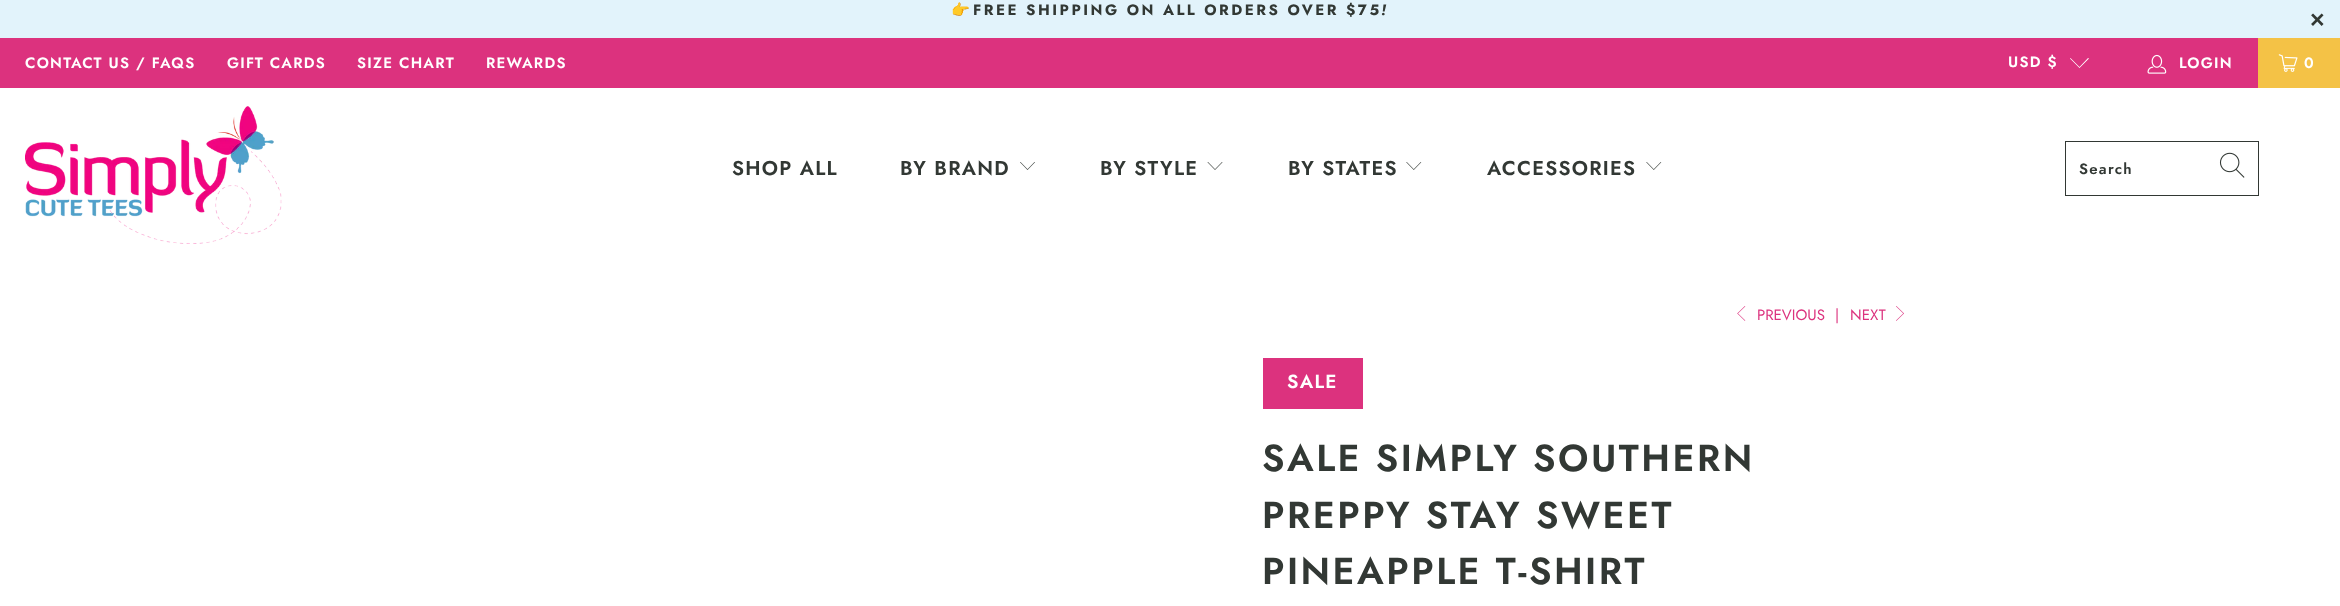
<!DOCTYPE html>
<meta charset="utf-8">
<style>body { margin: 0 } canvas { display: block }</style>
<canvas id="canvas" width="2340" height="606"></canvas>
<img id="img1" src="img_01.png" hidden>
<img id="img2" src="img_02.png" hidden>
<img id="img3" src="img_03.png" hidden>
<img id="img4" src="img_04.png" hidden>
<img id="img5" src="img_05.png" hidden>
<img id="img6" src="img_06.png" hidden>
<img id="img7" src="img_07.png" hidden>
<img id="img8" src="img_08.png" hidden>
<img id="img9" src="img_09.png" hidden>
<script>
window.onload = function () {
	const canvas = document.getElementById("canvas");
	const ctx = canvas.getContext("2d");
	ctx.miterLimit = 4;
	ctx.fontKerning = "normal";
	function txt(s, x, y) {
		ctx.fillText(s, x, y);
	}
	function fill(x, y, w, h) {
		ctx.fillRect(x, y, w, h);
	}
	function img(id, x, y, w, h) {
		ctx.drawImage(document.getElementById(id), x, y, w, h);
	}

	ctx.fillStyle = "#FFFFFF";
	fill(0, 0, 2340, 606);
	ctx.fillStyle = "#E2F3FB";
	fill(0, 0, 2340, 38);
	ctx.fillStyle = "#DC327E";
	fill(0, 38, 2258, 50);
	ctx.fillStyle = "#FFFFFF";
	ctx.beginPath();
	ctx.moveTo(2079.5, 68);
	ctx.lineTo(2070, 58.5);
	ctx.lineTo(2070.5, 58);
	ctx.lineTo(2079.5, 67);
	ctx.lineTo(2088, 58);
	ctx.lineTo(2089, 58.5);
	ctx.closePath();
	ctx.fill();
	img("img1", 2147, 54, 20, 20);
	ctx.fillStyle = "#F4C246";
	fill(2258, 38, 82, 50);
	img("img2", 2278, 54, 20, 18);
	img("img3", 25, 106, 257, 138);
	img("img4", 1020, 162, 15, 8);
	img("img5", 1207, 162, 16, 8);
	img("img6", 1406, 162, 16, 8);
	img("img6", 1646, 162, 16, 8);
	ctx.strokeStyle = "#323834";
	ctx.strokeRect(2065.5, 141.5, 193, 54);
	img("img7", 2219, 152, 26, 26);
	img("img8", 1737, 306, 9, 15);
	img("img9", 1896, 306, 8, 15);
	ctx.fillStyle = "#DC327E";
	fill(1263, 358, 100, 51);
	ctx.letterSpacing = "2.5px";
	ctx.font = "bold 15px Noto Color Emoji";
	ctx.fillStyle = "#323834";
	txt("👉", 951, 15);
	ctx.font = "bold 15px Jost";
	txt("FREE SHIPPING ON ALL ORDERS OVER $75", 973, 15);
	ctx.font = "italic bold 15px Jost";
	txt("!", 1381, 15);
	ctx.font = "bold 25px Liberation Sans";
	txt("×", 2310, 28);
	ctx.letterSpacing = "1.25px";
	ctx.font = "600 15px Jost";
	ctx.fillStyle = "#FFFFFF";
	txt("CONTACT US / FAQS", 25, 68);
	txt("GIFT CARDS", 227, 68);
	txt("SIZE CHART", 357, 68);
	txt("REWARDS", 486, 68);
	txt("USD $", 2008, 67);
	txt("LOGIN", 2179, 68);
	txt("0", 2304, 68);
	ctx.font = "600 20px Jost";
	ctx.fillStyle = "#323834";
	txt("SHOP ALL", 732, 175);
	txt("BY BRAND", 900, 175);
	txt("BY STYLE", 1100, 175);
	txt("BY STATES", 1288, 175);
	txt("ACCESSORIES", 1487, 175);
	ctx.font = "600 15px Jost";
	txt("Search", 2079, 174);
	ctx.letterSpacing = "0px";
	ctx.font = "15px Jost";
	ctx.fillStyle = "#DC327E";
	txt("PREVIOUS", 1757, 320);
	txt("|", 1835, 320);
	txt("NEXT", 1850, 320);
	ctx.letterSpacing = "1.25px";
	ctx.font = "600 19px Jost";
	ctx.fillStyle = "#FFFFFF";
	txt("SALE", 1287, 388);
	ctx.letterSpacing = "2.5px";
	ctx.font = "600 37.5px Jost";
	ctx.fillStyle = "#323834";
	txt("SALE SIMPLY SOUTHERN", 1262, 471);
	txt("PREPPY STAY SWEET", 1262, 528);
	txt("PINEAPPLE T-SHIRT", 1262, 584);
};
</script>
